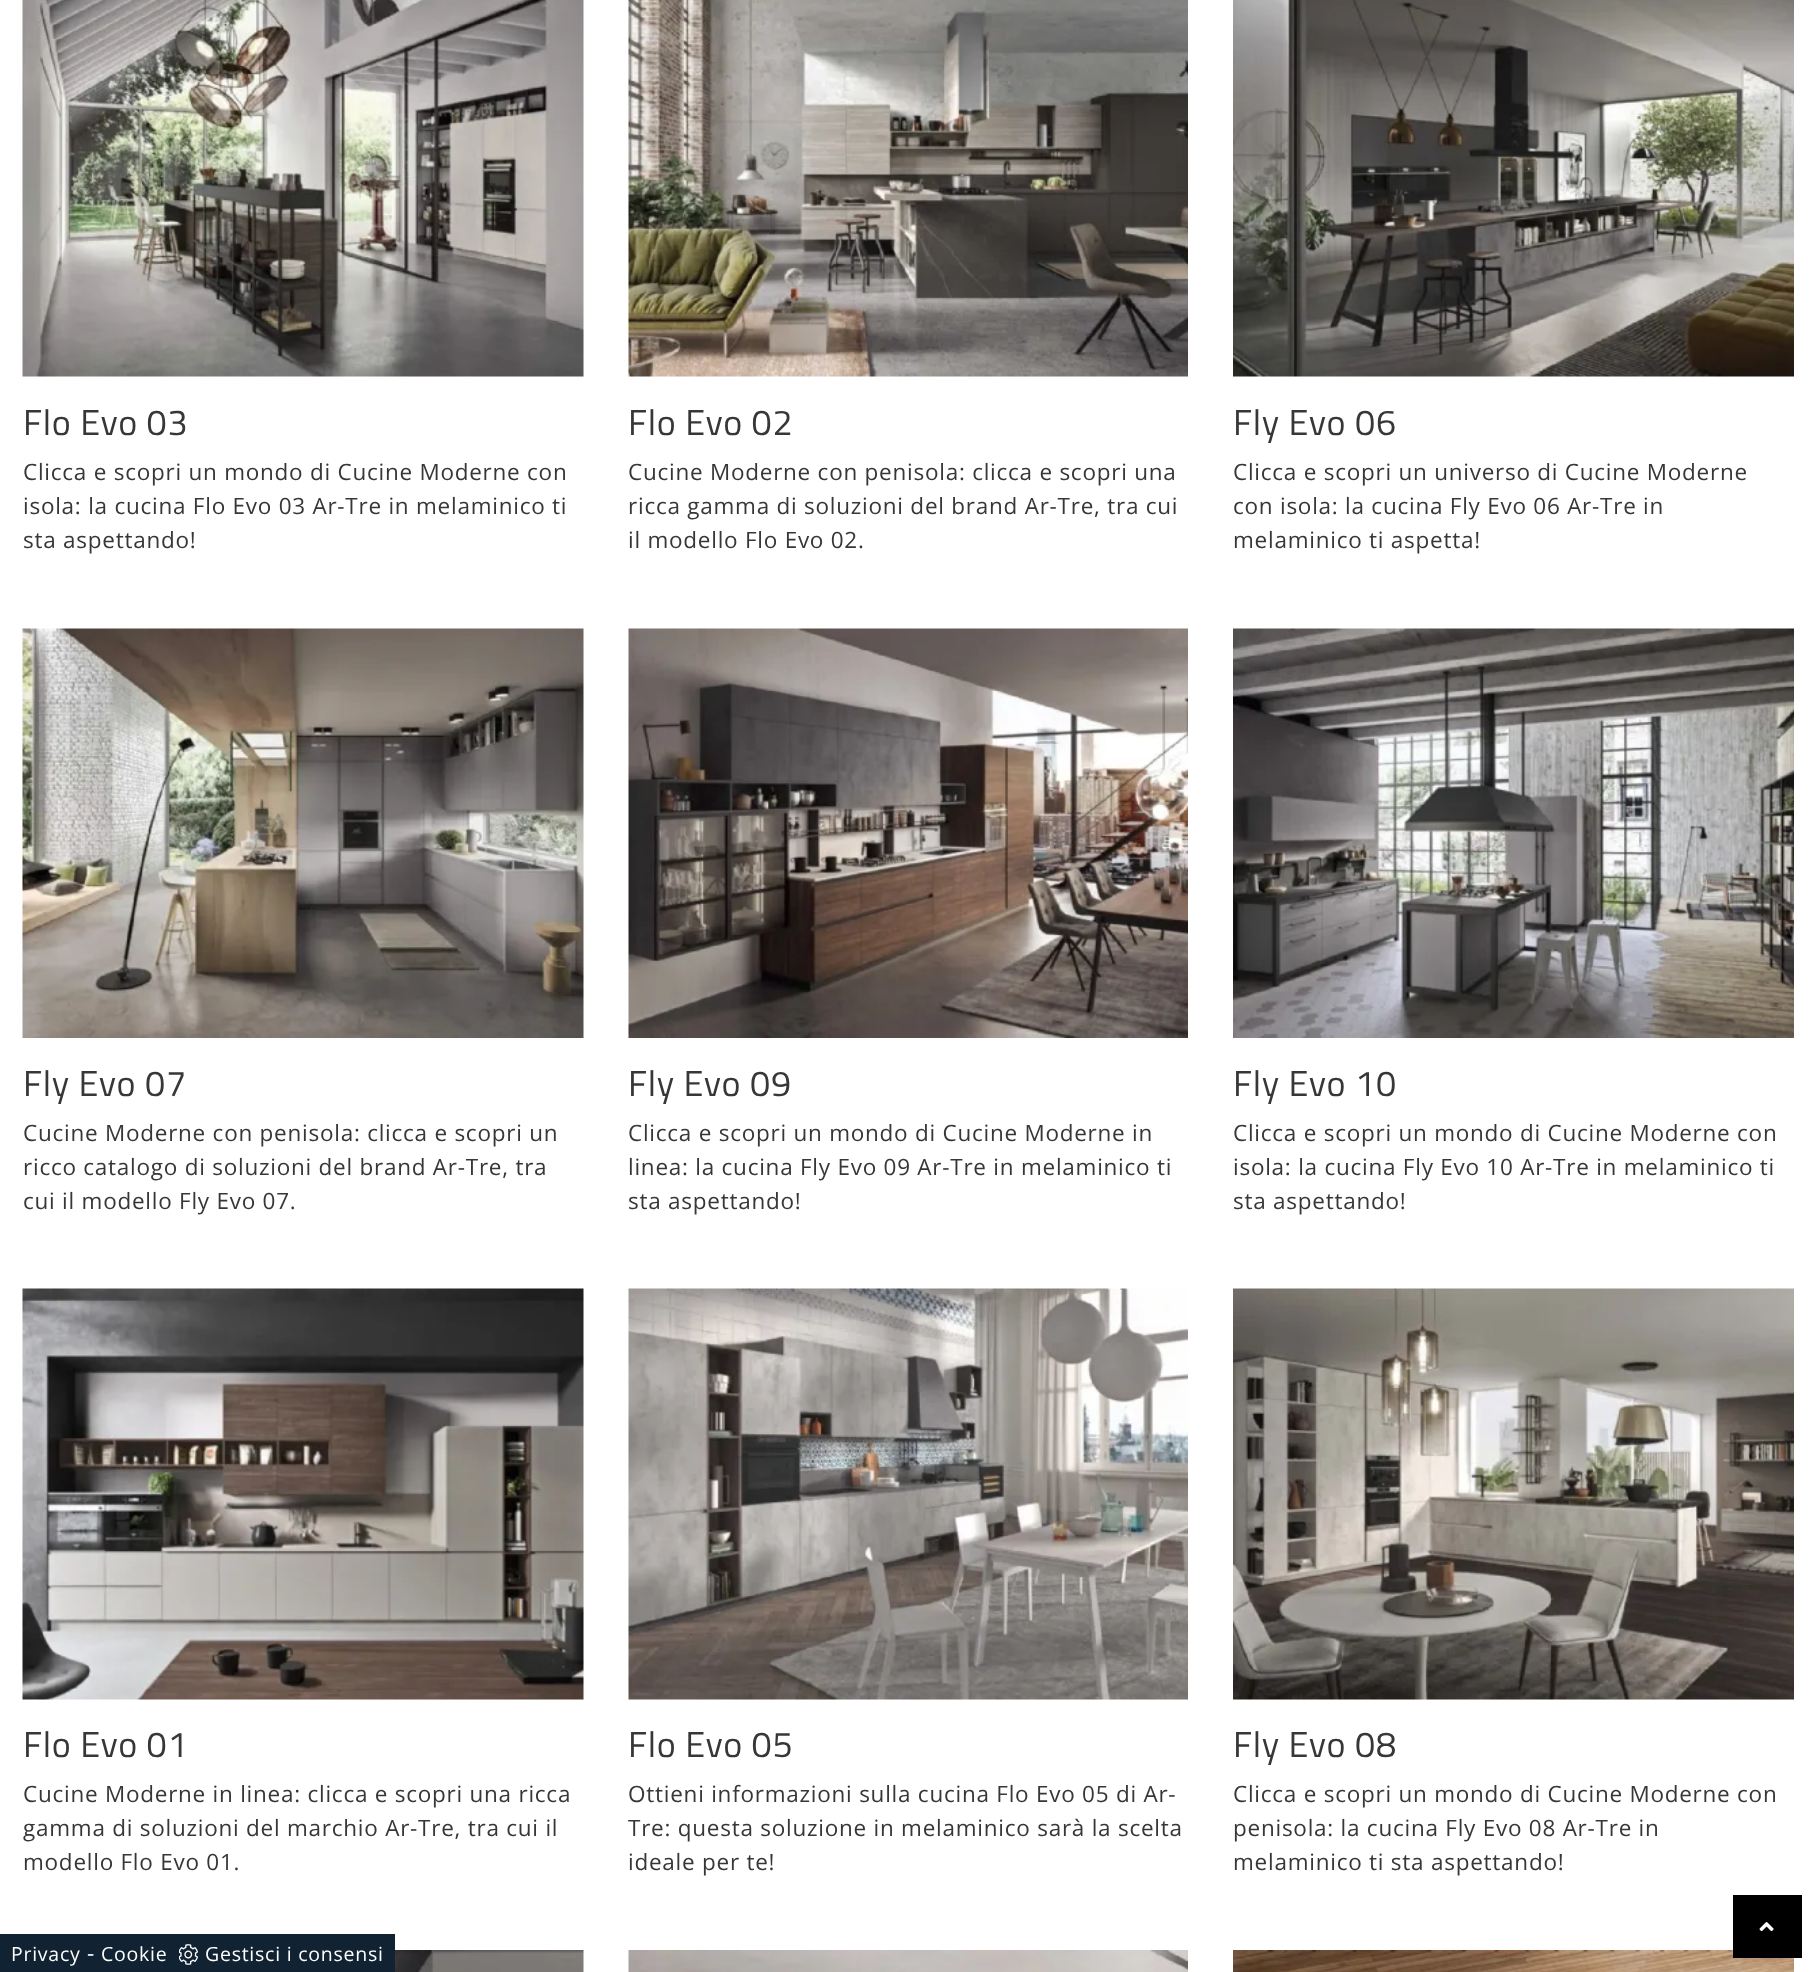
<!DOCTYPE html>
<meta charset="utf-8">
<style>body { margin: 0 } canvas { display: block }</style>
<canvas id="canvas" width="1816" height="1972"></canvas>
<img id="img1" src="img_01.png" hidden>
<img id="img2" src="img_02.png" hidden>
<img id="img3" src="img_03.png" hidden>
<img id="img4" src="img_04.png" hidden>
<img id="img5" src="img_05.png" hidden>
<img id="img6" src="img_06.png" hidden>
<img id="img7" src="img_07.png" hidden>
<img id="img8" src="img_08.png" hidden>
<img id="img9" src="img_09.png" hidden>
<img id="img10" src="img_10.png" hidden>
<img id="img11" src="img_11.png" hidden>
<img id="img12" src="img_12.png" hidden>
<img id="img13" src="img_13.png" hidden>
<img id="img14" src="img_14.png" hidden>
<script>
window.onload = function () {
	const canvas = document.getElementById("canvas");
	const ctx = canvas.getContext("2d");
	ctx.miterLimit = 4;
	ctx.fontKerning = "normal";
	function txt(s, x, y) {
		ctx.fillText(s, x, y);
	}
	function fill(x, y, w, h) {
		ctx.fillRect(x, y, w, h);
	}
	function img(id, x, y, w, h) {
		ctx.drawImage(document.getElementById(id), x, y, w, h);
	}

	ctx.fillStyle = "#FFFFFF";
	fill(0, 0, 1816, 1972);
	img("img1", 22, 0, 562, 377);
	img("img2", 628, 0, 560, 377);
	img("img3", 1233, 0, 561, 377);
	img("img4", 22, 628, 562, 410);
	img("img5", 628, 628, 560, 410);
	img("img6", 1233, 628, 561, 410);
	img("img7", 22, 1288, 562, 412);
	img("img8", 628, 1288, 560, 412);
	img("img9", 1233, 1288, 561, 412);
	img("img10", 395, 1950, 189, 22);
	img("img11", 628, 1950, 560, 22);
	img("img12", 1233, 1950, 561, 22);
	ctx.fillStyle = "#112233";
	fill(0, 1934, 395, 38);
	img("img13", 179, 1944, 19, 21);
	ctx.fillStyle = "#000000";
	fill(1733, 1895, 69, 63);
	img("img14", 1759, 1922, 15, 10);
	ctx.letterSpacing = "0.75px";
	ctx.font = "36px Titillium Web";
	ctx.fillStyle = "#373737";
	txt("Flo Evo 03", 23, 435);
	ctx.font = "22.5px Open Sans";
	txt("Clicca e scopri un mondo di Cucine Moderne con", 23, 480);
	txt("isola: la cucina Flo Evo 03 Ar-Tre in melaminico ti", 23, 514);
	txt("sta aspettando!", 23, 548);
	ctx.font = "36px Titillium Web";
	txt("Flo Evo 02", 628, 435);
	ctx.font = "22.5px Open Sans";
	txt("Cucine Moderne con penisola: clicca e scopri una", 628, 480);
	txt("ricca gamma di soluzioni del brand Ar-Tre, tra cui", 628, 514);
	txt("il modello Flo Evo 02.", 628, 548);
	ctx.font = "36px Titillium Web";
	txt("Fly Evo 06", 1233, 435);
	ctx.font = "22.5px Open Sans";
	txt("Clicca e scopri un universo di Cucine Moderne", 1233, 480);
	txt("con isola: la cucina Fly Evo 06 Ar-Tre in", 1233, 514);
	txt("melaminico ti aspetta!", 1233, 548);
	ctx.font = "36px Titillium Web";
	txt("Fly Evo 07", 23, 1096);
	ctx.font = "22.5px Open Sans";
	txt("Cucine Moderne con penisola: clicca e scopri un", 23, 1141);
	txt("ricco catalogo di soluzioni del brand Ar-Tre, tra", 23, 1175);
	txt("cui il modello Fly Evo 07.", 23, 1209);
	ctx.font = "36px Titillium Web";
	txt("Fly Evo 09", 628, 1096);
	ctx.font = "22.5px Open Sans";
	txt("Clicca e scopri un mondo di Cucine Moderne in", 628, 1141);
	txt("linea: la cucina Fly Evo 09 Ar-Tre in melaminico ti", 628, 1175);
	txt("sta aspettando!", 628, 1209);
	ctx.font = "36px Titillium Web";
	txt("Fly Evo 10", 1233, 1096);
	ctx.font = "22.5px Open Sans";
	txt("Clicca e scopri un mondo di Cucine Moderne con", 1233, 1141);
	txt("isola: la cucina Fly Evo 10 Ar-Tre in melaminico ti", 1233, 1175);
	txt("sta aspettando!", 1233, 1209);
	ctx.font = "36px Titillium Web";
	txt("Flo Evo 01", 23, 1757);
	ctx.font = "22.5px Open Sans";
	txt("Cucine Moderne in linea: clicca e scopri una ricca", 23, 1802);
	txt("gamma di soluzioni del marchio Ar-Tre, tra cui il", 23, 1836);
	txt("modello Flo Evo 01.", 23, 1870);
	ctx.font = "36px Titillium Web";
	txt("Flo Evo 05", 628, 1757);
	ctx.font = "22.5px Open Sans";
	txt("Ottieni informazioni sulla cucina Flo Evo 05 di Ar-", 628, 1802);
	txt("Tre: questa soluzione in melaminico sarà la scelta", 628, 1836);
	txt("ideale per te!", 628, 1870);
	ctx.font = "36px Titillium Web";
	txt("Fly Evo 08", 1233, 1757);
	ctx.font = "22.5px Open Sans";
	txt("Clicca e scopri un mondo di Cucine Moderne con", 1233, 1802);
	txt("penisola: la cucina Fly Evo 08 Ar-Tre in", 1233, 1836);
	txt("melaminico ti sta aspettando!", 1233, 1870);
	ctx.font = "19.5px Open Sans";
	ctx.fillStyle = "#FFFFFF";
	txt("Privacy", 11, 1961);
	ctx.font = "22.5px Open Sans";
	txt("-", 87, 1961);
	ctx.font = "19.5px Open Sans";
	txt("Cookie", 101, 1961);
	txt("Gestisci i consensi", 205, 1961);
};
</script>
